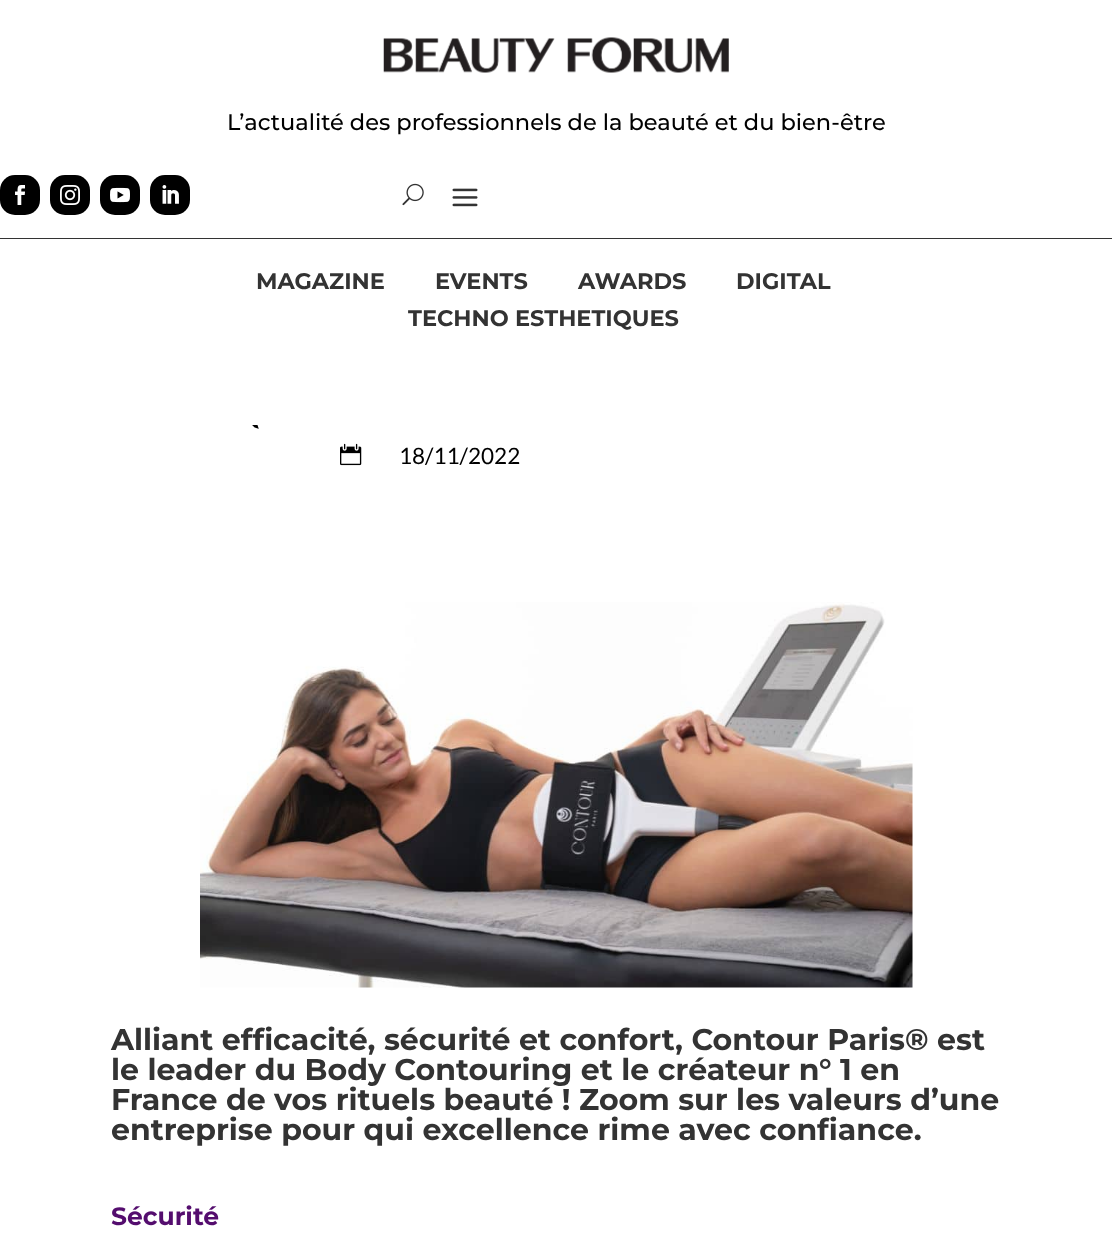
<!DOCTYPE html>
<meta charset="utf-8">
<style>body { margin: 0 } canvas { display: block }</style>
<canvas id="canvas" width="1112" height="1240"></canvas>
<img id="img1" src="img_01.png" hidden>
<img id="img2" src="img_02.png" hidden>
<img id="img3" src="img_03.png" hidden>
<img id="img4" src="img_04.png" hidden>
<img id="img5" src="img_05.png" hidden>
<img id="img6" src="img_06.png" hidden>
<img id="img7" src="img_07.png" hidden>
<img id="img8" src="img_08.png" hidden>
<img id="img9" src="img_09.png" hidden>
<img id="img10" src="img_10.png" hidden>
<script>
window.onload = function () {
	const canvas = document.getElementById("canvas");
	const ctx = canvas.getContext("2d");
	ctx.miterLimit = 4;
	ctx.fontKerning = "normal";
	function txt(s, x, y) {
		ctx.fillText(s, x, y);
	}
	function fill(x, y, w, h) {
		ctx.fillRect(x, y, w, h);
	}
	function round(x, y, w, h, r) {
		ctx.beginPath();
		ctx.roundRect(x, y, w, h, r);
		ctx.fill();
	}
	function img(id, x, y, w, h) {
		ctx.drawImage(document.getElementById(id), x, y, w, h);
	}

	ctx.fillStyle = "#FFFFFF";
	fill(0, 0, 1112, 1240);
	ctx.fillStyle = "#333333";
	fill(0, 238, 1112, 1);
	img("img1", 383, 37, 346, 36);
	ctx.fillStyle = "#000000";
	round(0, 175, 40, 40, 15);
	img("img2", 15, 185, 10, 20);
	round(50, 175, 40, 40, 15);
	img("img3", 60, 185, 20, 20);
	round(100, 175, 40, 40, 15);
	img("img4", 110, 187, 20, 16);
	round(150, 175, 40, 40, 15);
	img("img5", 162, 185, 17, 19);
	img("img6", 402, 183, 22, 23);
	img("img7", 452, 188, 26, 19);
	img("img8", 252, 425, 7, 4);
	img("img9", 340, 443, 22, 23);
	img("img10", 200, 602, 713, 386);
	ctx.font = "100 22.5px 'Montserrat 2'";
	txt("L’actualité des professionnels de la beauté et du bien-être", 227, 130);
	ctx.font = "100 22.5px Montserrat";
	ctx.fillStyle = "#333333";
	txt("MAGAZINE", 256, 289);
	txt("EVENTS", 435, 289);
	txt("AWARDS", 578, 289);
	txt("DIGITAL", 736, 289);
	txt("TECHNO ESTHETIQUES", 408, 326);
	ctx.font = "22.5px Lato";
	ctx.fillStyle = "#000000";
	txt("18/11/2022", 399, 464);
	ctx.font = "100 30px Montserrat";
	ctx.fillStyle = "#333333";
	txt("Alliant efficacité, sécurité et confort, Contour Paris® est", 111, 1050);
	txt("le leader du Body Contouring et le créateur n° 1 en", 111, 1080);
	txt("France de vos rituels beauté ! Zoom sur les valeurs d’une", 111, 1110);
	txt("entreprise pour qui excellence rime avec confiance.", 111, 1140);
	ctx.font = "100 25px Montserrat";
	ctx.fillStyle = "#540D6E";
	txt("Sécurité", 111, 1225);
};
</script>
